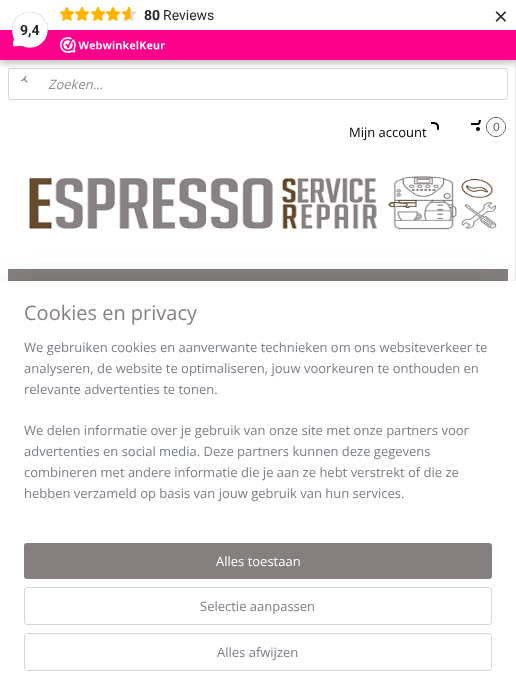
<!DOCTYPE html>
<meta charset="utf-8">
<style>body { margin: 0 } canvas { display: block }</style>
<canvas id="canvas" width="516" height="695"></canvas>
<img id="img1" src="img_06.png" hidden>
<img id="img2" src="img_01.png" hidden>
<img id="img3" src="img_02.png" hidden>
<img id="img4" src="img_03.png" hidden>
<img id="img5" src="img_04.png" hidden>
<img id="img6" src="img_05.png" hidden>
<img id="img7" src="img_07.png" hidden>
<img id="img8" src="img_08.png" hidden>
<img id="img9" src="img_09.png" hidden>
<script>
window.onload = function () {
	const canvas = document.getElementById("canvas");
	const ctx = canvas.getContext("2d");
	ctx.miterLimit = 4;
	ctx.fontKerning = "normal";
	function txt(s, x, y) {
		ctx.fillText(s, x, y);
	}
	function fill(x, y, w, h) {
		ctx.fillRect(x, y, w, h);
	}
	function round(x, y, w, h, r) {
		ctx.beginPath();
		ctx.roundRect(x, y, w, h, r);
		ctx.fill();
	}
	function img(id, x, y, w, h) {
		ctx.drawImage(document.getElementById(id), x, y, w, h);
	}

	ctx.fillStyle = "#FFFFFF";
	fill(0, 0, 516, 695);
	ctx.beginPath();
	ctx.roundRect(8.5, 68.5, 499, 31, 2.5);
	ctx.strokeStyle = "#D3D5D9";
	ctx.stroke();
	ctx.fillStyle = "rgba(0, 0, 0, 0.15)";
	ctx.filter = "blur(3px)";
	ctx.beginPath();
	ctx.rect(-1, -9, 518, 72);
	ctx.fill();
	ctx.filter = "none";
	img("img1", 21, 76, 7, 7);
	ctx.filter = "blur(5px)";
	ctx.beginPath();
	ctx.rect(0, 2, 516, 60);
	ctx.fill();
	ctx.filter = "none";
	ctx.fillStyle = "rgba(0, 0, 0, 0.2)";
	ctx.filter = "blur(1px)";
	ctx.beginPath();
	ctx.rect(516, 1, 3, 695);
	ctx.fill();
	ctx.filter = "none";
	ctx.fillStyle = "#FFFFFF";
	fill(0, 0, 516, 30);
	img("img2", 60, 7, 14, 14);
	img("img2", 75, 7, 14, 14);
	img("img2", 91, 7, 14, 14);
	img("img2", 106, 7, 14, 14);
	img("img3", 122, 7, 14, 14);
	img("img4", 122, 7, 9, 14);
	ctx.fillStyle = "#FE008C";
	fill(0, 30, 516, 30);
	img("img5", 12, 12, 36, 36);
	img("img6", 60, 37, 105, 16);
	img("img7", 431, 122, 8, 8);
	img("img8", 471, 120, 10, 11);
	ctx.beginPath();
	ctx.arc(496, 127, 9.5, 0, Math.PI * 2);
	ctx.strokeStyle = "#575B62";
	ctx.stroke();
	ctx.fillStyle = "#FFFFFF";
	ctx.beginPath();
	ctx.arc(496, 127, 9, 0, Math.PI * 2);
	ctx.fill();
	img("img9", 29, 176, 468, 54);
	ctx.fillStyle = "#857F7F";
	fill(8, 269, 500, 12);
	ctx.fillStyle = "rgba(0, 0, 0, 0.2)";
	ctx.filter = "blur(18px)";
	ctx.beginPath();
	ctx.rect(10, 291, 496, 394);
	ctx.fill();
	ctx.filter = "none";
	ctx.fillStyle = "#FFFFFF";
	fill(0, 281, 516, 414);
	ctx.fillStyle = "#857F7F";
	round(24, 543, 468, 36, 3);
	ctx.beginPath();
	ctx.roundRect(24.5, 587.5, 467, 37, 2.5);
	ctx.strokeStyle = "#D6D6D6";
	ctx.stroke();
	ctx.beginPath();
	ctx.roundRect(24.5, 633.5, 467, 37, 2.5);
	ctx.stroke();
	ctx.font = "bold 14px Roboto";
	ctx.fillStyle = "#272626";
	txt("80", 144, 20);
	ctx.font = "14px Roboto";
	txt("Reviews", 163, 20);
	ctx.font = "24px Open Sans";
	txt("×", 494, 25);
	ctx.font = "bold 14px Roboto";
	txt("9,4", 20, 35);
	ctx.font = "italic 13px Open Sans";
	ctx.fillStyle = "#898C91";
	txt("Zoeken...", 48, 89);
	ctx.font = "13px Open Sans";
	ctx.fillStyle = "#000000";
	txt("Mijn account", 349, 137);
	ctx.font = "12px Liberation Sans";
	ctx.fillStyle = "#575B62";
	txt("0", 493, 131);
	ctx.font = "20px Open Sans";
	ctx.fillStyle = "#857F7F";
	txt("Cookies en privacy", 24, 320);
	ctx.font = "13px Open Sans";
	ctx.fillStyle = "#797D85";
	txt("We gebruiken cookies en aanverwante technieken om ons websiteverkeer te", 24, 352);
	txt("analyseren, de website te optimaliseren, jouw voorkeuren te onthouden en", 24, 373);
	txt("relevante advertenties te tonen.", 24, 394);
	txt("We delen informatie over je gebruik van onze site met onze partners voor", 24, 435);
	txt("advertenties en social media. Deze partners kunnen deze gegevens", 24, 456);
	txt("combineren met andere informatie die je aan ze hebt verstrekt of die ze", 24, 477);
	txt("hebben verzameld op basis van jouw gebruik van hun services.", 24, 498);
	ctx.fillStyle = "#FFFFFF";
	txt("Alles toestaan", 216, 566);
	ctx.fillStyle = "#797D85";
	txt("Selectie aanpassen", 200, 611);
	txt("Alles afwijzen", 217, 657);
};
</script>
